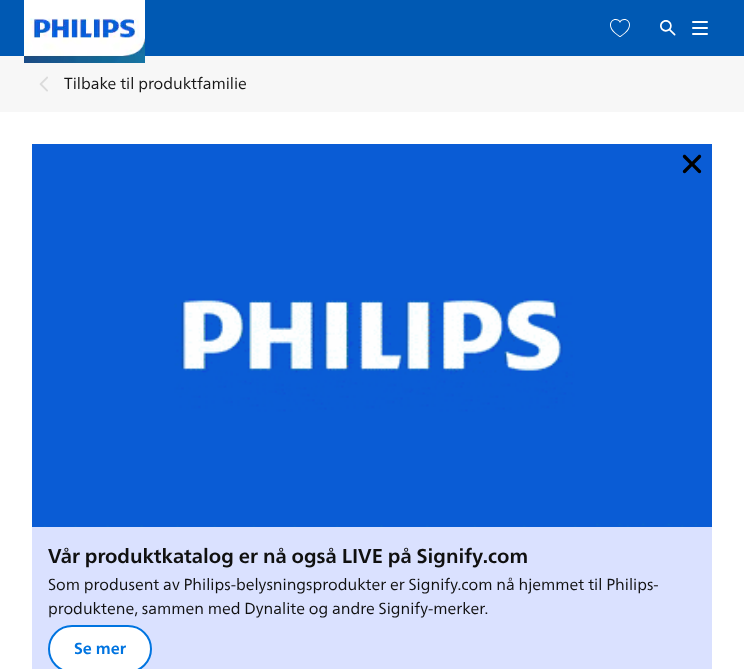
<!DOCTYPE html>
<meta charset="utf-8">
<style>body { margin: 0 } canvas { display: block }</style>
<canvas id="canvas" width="744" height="669"></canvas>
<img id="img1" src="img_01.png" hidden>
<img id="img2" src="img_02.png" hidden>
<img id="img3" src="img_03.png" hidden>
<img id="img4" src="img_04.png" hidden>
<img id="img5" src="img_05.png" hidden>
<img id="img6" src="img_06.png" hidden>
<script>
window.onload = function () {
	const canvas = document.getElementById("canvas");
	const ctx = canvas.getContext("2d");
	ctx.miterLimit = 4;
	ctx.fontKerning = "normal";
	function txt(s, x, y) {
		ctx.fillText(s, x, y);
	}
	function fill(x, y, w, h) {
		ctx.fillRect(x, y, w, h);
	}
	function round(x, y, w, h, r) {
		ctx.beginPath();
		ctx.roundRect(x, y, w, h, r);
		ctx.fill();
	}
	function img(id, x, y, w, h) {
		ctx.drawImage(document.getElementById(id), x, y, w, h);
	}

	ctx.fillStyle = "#FFFFFF";
	fill(0, 0, 744, 669);
	ctx.fillStyle = "#0059B3";
	fill(0, 0, 744, 56);
	ctx.fillStyle = "#F7F7F7";
	fill(0, 56, 744, 56);
	img("img1", 24, 0, 121, 63);
	img("img2", 610, 19, 20, 18);
	img("img3", 660, 20, 16, 16);
	ctx.fillStyle = "#FFFFFF";
	round(692, 21, 16, 2, 1);
	round(692, 27, 16, 2, 1);
	round(692, 33, 16, 2, 1);
	img("img4", 39, 76, 9, 16);
	ctx.fillStyle = "#DAE1FF";
	fill(32, 527, 680, 142);
	img("img5", 32, 144, 680, 383);
	img("img6", 682, 154, 20, 20);
	ctx.fillStyle = "#FFFFFF";
	ctx.beginPath();
	ctx.roundRect(49, 626, 102, 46, 23);
	ctx.fill();
	ctx.strokeStyle = "#0074E0";
	ctx.lineWidth = 2;
	ctx.stroke();
	ctx.font = "16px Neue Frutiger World";
	ctx.fillStyle = "#171717";
	txt("Tilbake til produktfamilie", 64, 89);
	ctx.font = "bold 20px Neue Frutiger World";
	ctx.fillStyle = "#101010";
	txt("Vår produktkatalog er nå også LIVE på Signify.com", 48, 563);
	ctx.font = "16px Neue Frutiger World";
	txt("Som produsent av Philips-belysningsprodukter er Signify.com nå hjemmet til Philips-", 48, 590);
	txt("produktene, sammen med Dynalite og andre Signify-merker.", 48, 614);
	ctx.font = "bold 16px Neue Frutiger World";
	ctx.fillStyle = "#0074E0";
	txt("Se mer", 74, 654);
};
</script>
